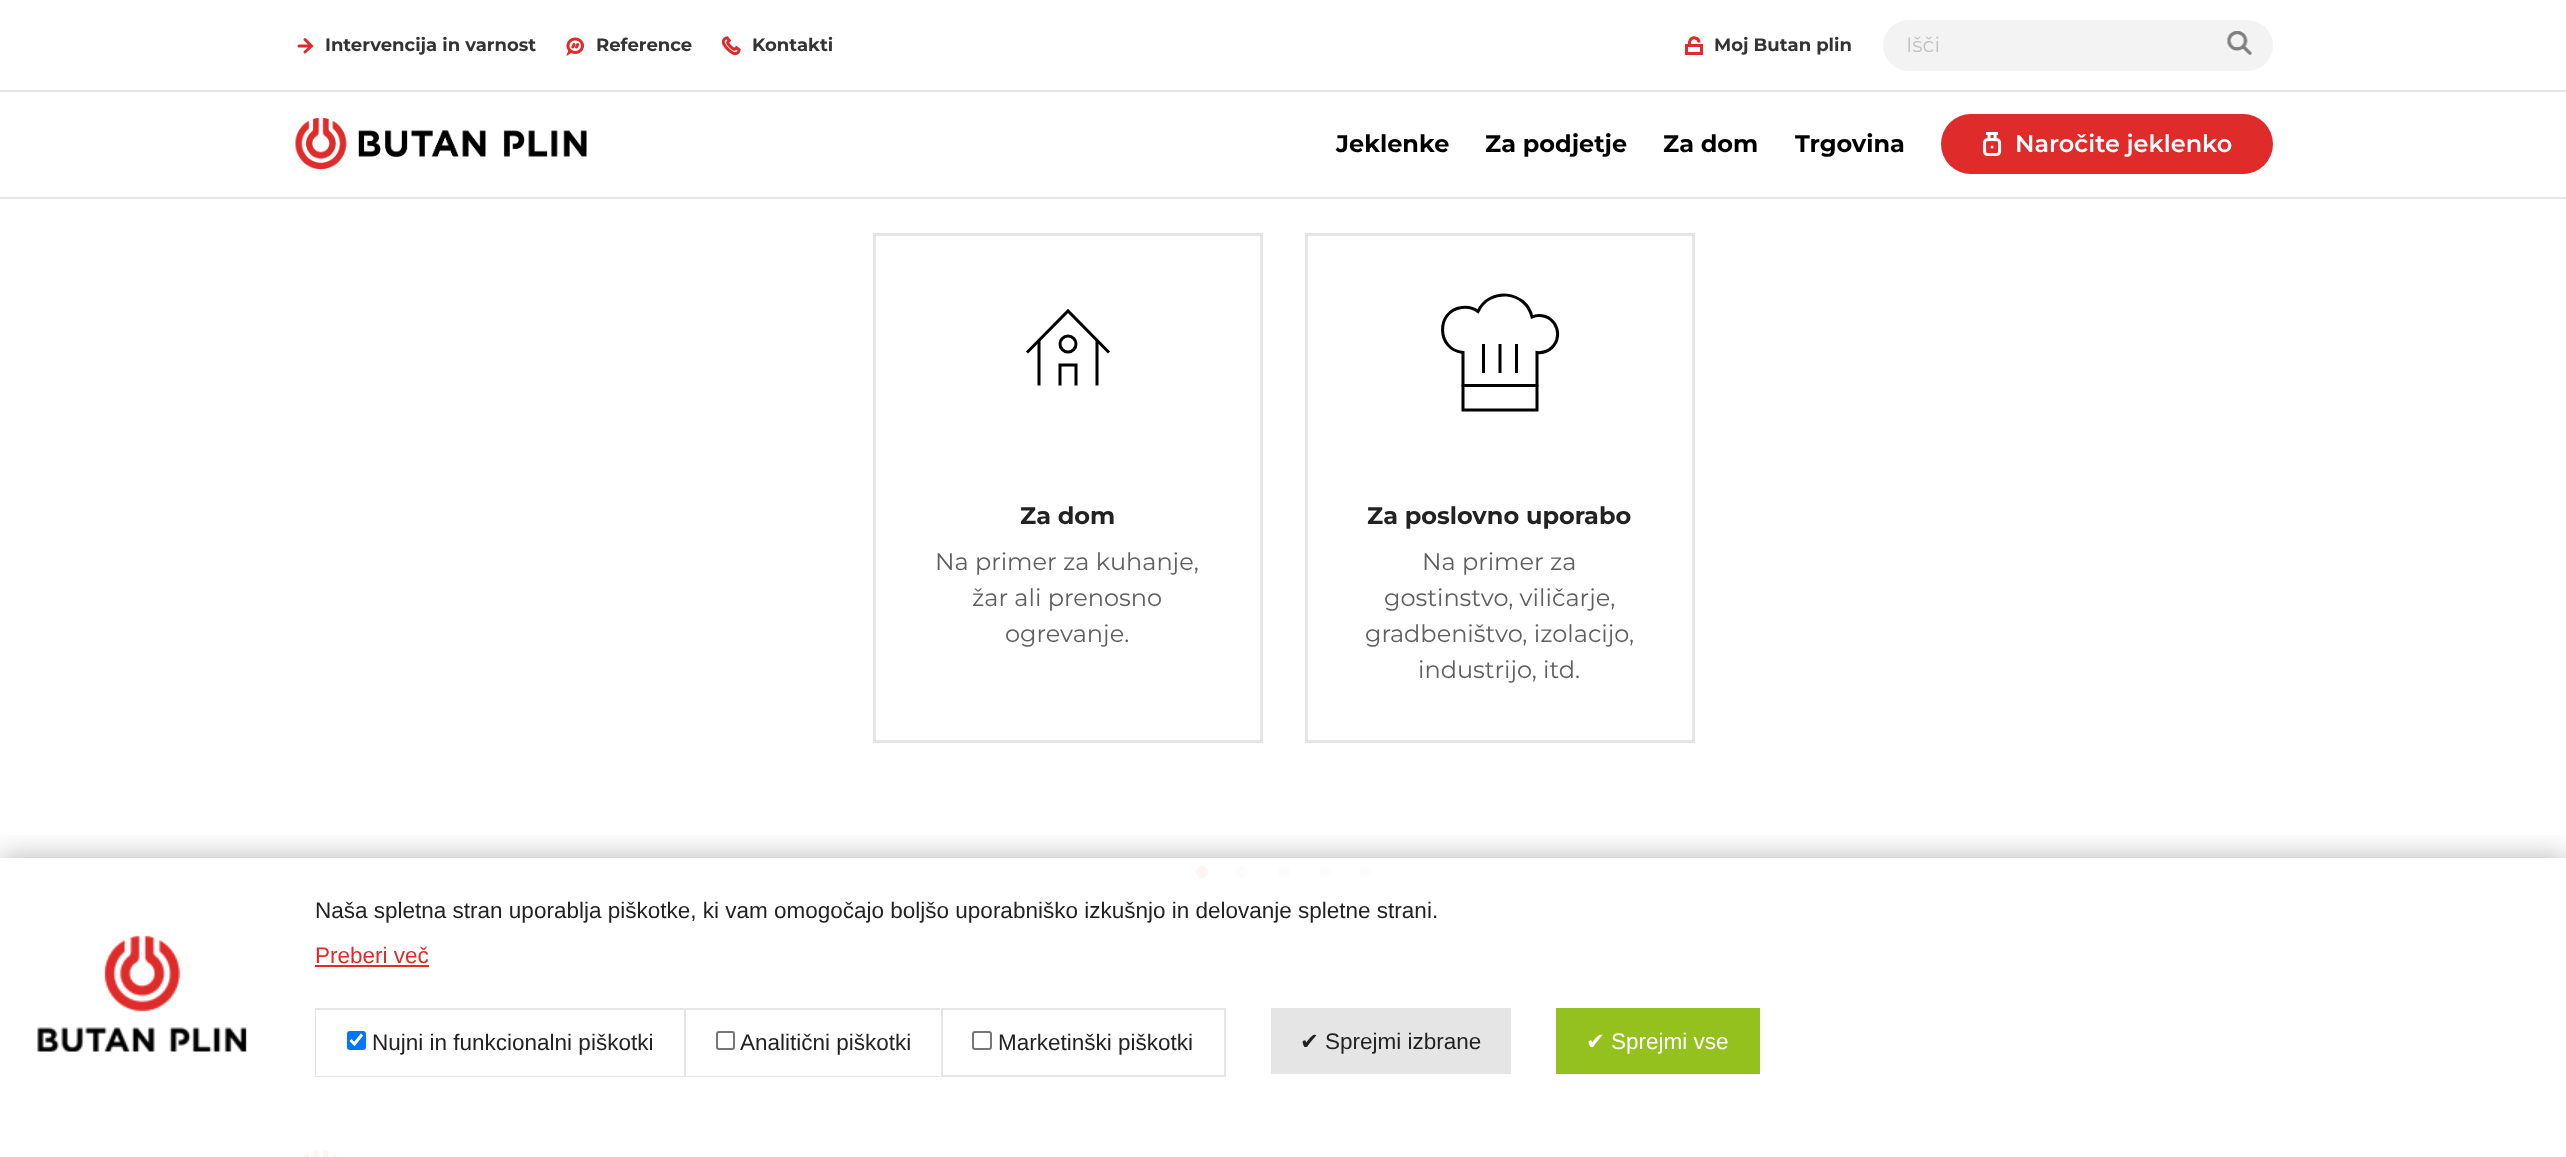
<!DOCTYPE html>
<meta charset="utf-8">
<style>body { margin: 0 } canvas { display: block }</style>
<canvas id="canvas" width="2566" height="1157"></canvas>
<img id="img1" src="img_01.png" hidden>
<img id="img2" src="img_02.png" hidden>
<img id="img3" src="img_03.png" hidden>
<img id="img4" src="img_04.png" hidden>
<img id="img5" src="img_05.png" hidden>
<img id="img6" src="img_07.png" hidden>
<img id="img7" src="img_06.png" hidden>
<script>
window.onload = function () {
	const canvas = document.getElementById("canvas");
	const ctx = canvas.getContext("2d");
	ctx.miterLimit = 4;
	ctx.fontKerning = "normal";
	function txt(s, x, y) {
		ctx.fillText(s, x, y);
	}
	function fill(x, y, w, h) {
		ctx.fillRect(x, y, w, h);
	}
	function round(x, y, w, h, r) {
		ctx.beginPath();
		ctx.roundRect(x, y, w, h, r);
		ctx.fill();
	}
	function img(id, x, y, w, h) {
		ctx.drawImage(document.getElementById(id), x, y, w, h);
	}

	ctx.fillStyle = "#FFFFFF";
	fill(0, 0, 2566, 1157);
	ctx.fillStyle = "#E6E6E6";
	fill(0, 90, 2566, 2);
	ctx.beginPath();
	ctx.moveTo(305, 39.5);
	ctx.lineTo(311.5, 46);
	ctx.lineTo(305, 52);
	ctx.moveTo(311.5, 46);
	ctx.lineTo(299, 46);
	ctx.strokeStyle = "#DF2B2A";
	ctx.lineWidth = 3;
	ctx.lineCap = "round";
	ctx.stroke();
	img("img1", 566, 37, 19, 19);
	img("img2", 722, 36, 19, 20);
	ctx.strokeRect(1686.5, 45.5, 15, 8);
	ctx.beginPath();
	ctx.moveTo(1699, 42.5);
	ctx.bezierCurveTo(1699, 37.5, 1692, 36, 1690, 40.5);
	ctx.bezierCurveTo(1689, 42, 1689.5, 44, 1689.5, 46);
	ctx.lineCap = "butt";
	ctx.stroke();
	ctx.fillStyle = "#F3F3F3";
	round(1883, 20, 390, 51, 25.5);
	img("img3", 2227, 31, 25, 24);
	ctx.fillStyle = "#E6E6E6";
	fill(0, 197, 2566, 2);
	img("img4", 295, 118, 292, 51);
	ctx.fillStyle = "#DF2B2A";
	round(1941, 114, 332, 60, 30);
	img("img5", 1983, 132, 19, 24);
	ctx.strokeStyle = "#E6E6E6";
	ctx.strokeRect(874.5, 234.5, 387, 507);
	ctx.beginPath();
	ctx.moveTo(1039, 385.5);
	ctx.lineTo(1039, 340);
	ctx.moveTo(1097, 340);
	ctx.lineTo(1097, 385.5);
	ctx.strokeStyle = "#000000";
	ctx.stroke();
	ctx.beginPath();
	ctx.moveTo(1027, 352.5);
	ctx.lineTo(1068, 311);
	ctx.lineTo(1109, 352.5);
	ctx.stroke();
	ctx.beginPath();
	ctx.arc(1068, 344, 8, 0, Math.PI * 2);
	ctx.stroke();
	ctx.beginPath();
	ctx.moveTo(1060, 385.5);
	ctx.lineTo(1060, 365);
	ctx.lineTo(1076, 365);
	ctx.lineTo(1076, 385.5);
	ctx.stroke();
	ctx.strokeStyle = "#E6E6E6";
	ctx.strokeRect(1306.5, 234.5, 387, 507);
	ctx.beginPath();
	ctx.moveTo(1539, 315.5);
	ctx.bezierCurveTo(1537, 315.5, 1534.5, 316, 1532, 317);
	ctx.bezierCurveTo(1526, 290.5, 1489.5, 287, 1478, 311.5);
	ctx.bezierCurveTo(1473.5, 308, 1467.5, 306.5, 1461.5, 307.5);
	ctx.bezierCurveTo(1435.5, 311, 1436.5, 350, 1463, 352.5);
	ctx.lineTo(1463, 410);
	ctx.lineTo(1537, 410);
	ctx.lineTo(1537, 352.5);
	ctx.bezierCurveTo(1541.5, 353, 1546, 352, 1549.5, 349.5);
	ctx.bezierCurveTo(1564.5, 339, 1557.5, 315.5, 1539, 315.5);
	ctx.closePath();
	ctx.strokeStyle = "#000000";
	ctx.stroke();
	ctx.fillStyle = "#000000";
	fill(1482, 344, 3, 29);
	ctx.beginPath();
	ctx.moveTo(1500, 344);
	ctx.lineTo(1500, 373);
	ctx.lineJoin = "round";
	ctx.stroke();
	fill(1515, 344, 3, 29);
	ctx.beginPath();
	ctx.moveTo(1463, 385.5);
	ctx.lineTo(1537, 385.5);
	ctx.lineCap = "round";
	ctx.stroke();
	ctx.fillStyle = "#FDF4F4";
	ctx.beginPath();
	ctx.arc(1202, 872, 6, 0, Math.PI * 2);
	ctx.fill();
	ctx.fillStyle = "#FCFCFC";
	ctx.beginPath();
	ctx.arc(1242, 872, 6, 0, Math.PI * 2);
	ctx.fill();
	ctx.beginPath();
	ctx.arc(1284, 872, 6, 0, Math.PI * 2);
	ctx.fill();
	ctx.beginPath();
	ctx.arc(1325, 872, 6, 0, Math.PI * 2);
	ctx.fill();
	ctx.beginPath();
	ctx.arc(1365, 872, 6, 0, Math.PI * 2);
	ctx.fill();
	img("img6", 303, 1150, 36, 7);
	ctx.save();
	ctx.beginPath();
	ctx.rect(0, 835, 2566, 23);
	ctx.clip();
	ctx.fillStyle = "rgba(0, 0, 0, 0.3)";
	ctx.filter = "blur(15px)";
	ctx.beginPath();
	ctx.rect(0, 858, 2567, 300);
	ctx.fill();
	ctx.filter = "none";
	ctx.restore();
	img("img7", 37, 935, 210, 117);
	ctx.fillStyle = "#DF2B2A";
	fill(315, 965, 114, 2);
	ctx.fillStyle = "#E5E5E5";
	ctx.beginPath();
	ctx.moveTo(315, 1008);
	ctx.lineTo(684, 1008);
	ctx.lineTo(684, 1010);
	ctx.lineTo(316, 1010);
	ctx.closePath();
	ctx.fill();
	ctx.beginPath();
	ctx.moveTo(684, 1077);
	ctx.lineTo(315, 1077);
	ctx.lineTo(316, 1076);
	ctx.lineTo(684, 1076);
	ctx.closePath();
	ctx.fill();
	ctx.fillStyle = "rgba(0, 0, 0, 0.1)";
	ctx.beginPath();
	ctx.moveTo(315, 1077);
	ctx.lineTo(315, 1008);
	ctx.lineTo(316, 1010);
	ctx.lineTo(316, 1076);
	ctx.closePath();
	ctx.fill();
	ctx.fillStyle = "#0075FF";
	round(347, 1031, 19, 19, 3);
	ctx.beginPath();
	ctx.moveTo(350.5, 1040);
	ctx.lineTo(354.5, 1044);
	ctx.lineTo(362, 1034.5);
	ctx.strokeStyle = "#FFFFFF";
	ctx.lineWidth = 3.1;
	ctx.lineCap = "butt";
	ctx.lineJoin = "miter";
	ctx.stroke();
	ctx.fillStyle = "#E5E5E5";
	ctx.beginPath();
	ctx.moveTo(684, 1008);
	ctx.lineTo(940, 1008);
	ctx.lineTo(940, 1010);
	ctx.lineTo(686, 1010);
	ctx.closePath();
	ctx.fill();
	ctx.beginPath();
	ctx.moveTo(940, 1077);
	ctx.lineTo(684, 1077);
	ctx.lineTo(686, 1076);
	ctx.lineTo(940, 1076);
	ctx.closePath();
	ctx.fill();
	ctx.fillStyle = "rgba(0, 0, 0, 0.1)";
	ctx.beginPath();
	ctx.moveTo(684, 1077);
	ctx.lineTo(684, 1008);
	ctx.lineTo(686, 1010);
	ctx.lineTo(686, 1076);
	ctx.closePath();
	ctx.fill();
	ctx.beginPath();
	ctx.roundRect(717, 1032, 17, 17, 2);
	ctx.strokeStyle = "#767676";
	ctx.lineWidth = 2;
	ctx.stroke();
	ctx.strokeStyle = "#E5E5E5";
	ctx.strokeRect(942, 1009, 283, 67);
	ctx.beginPath();
	ctx.roundRect(973, 1032, 18, 17, 2);
	ctx.strokeStyle = "#767676";
	ctx.stroke();
	ctx.fillStyle = "#E5E5E5";
	fill(1271, 1008, 240, 66);
	ctx.fillStyle = "#95C11E";
	fill(1556, 1008, 204, 66);
	ctx.font = "bold 18px Montserrat";
	ctx.fillStyle = "#333333";
	txt("Intervencija in varnost", 325, 51);
	txt("Reference", 596, 51);
	txt("Kontakti", 752, 51);
	txt("Moj Butan plin", 1714, 51);
	ctx.font = "21px Montserrat";
	ctx.fillStyle = "#C2C2C2";
	txt("Išči", 1906, 52);
	ctx.font = "bold 24px Montserrat";
	ctx.fillStyle = "#000000";
	txt("Jeklenke", 1336, 152);
	txt("Za podjetje", 1485, 152);
	txt("Za dom", 1663, 152);
	txt("Trgovina", 1795, 152);
	ctx.font = "600 24px Montserrat";
	ctx.fillStyle = "#FFFFFF";
	txt("Naročite jeklenko", 2015, 152);
	ctx.font = "bold 24px Montserrat";
	ctx.fillStyle = "#222222";
	txt("Za dom", 1020, 524);
	ctx.font = "24px Montserrat";
	ctx.fillStyle = "#5F5F5F";
	txt("Na primer za kuhanje,", 935, 570);
	txt("žar ali prenosno", 972, 606);
	txt("ogrevanje.", 1005, 642);
	ctx.font = "bold 24px Montserrat";
	ctx.fillStyle = "#222222";
	txt("Za poslovno uporabo", 1367, 524);
	ctx.font = "24px Montserrat";
	ctx.fillStyle = "#5F5F5F";
	txt("Na primer za", 1422, 570);
	txt("gostinstvo, viličarje,", 1384, 606);
	txt("gradbeništvo, izolacijo,", 1365, 642);
	txt("industrijo, itd.", 1418, 678);
	ctx.font = "22.5px Liberation Sans";
	ctx.fillStyle = "#222222";
	txt("Naša spletna stran uporablja piškotke, ki vam omogočajo boljšo uporabniško izkušnjo in delovanje spletne strani.", 315, 918);
	ctx.fillStyle = "#DF2B2A";
	txt("Preberi več", 315, 963);
	ctx.fillStyle = "#222222";
	txt("Nujni in funkcionalni piškotki", 372, 1050);
	txt("Analitični piškotki", 740, 1050);
	txt("Marketinški piškotki", 998, 1050);
	ctx.font = "22.5px DejaVu Sans";
	txt("✔", 1300, 1049);
	ctx.font = "22.5px Liberation Sans";
	txt("Sprejmi izbrane", 1325, 1049);
	ctx.font = "22.5px DejaVu Sans";
	ctx.fillStyle = "#FFFFFF";
	txt("✔", 1586, 1049);
	ctx.font = "22.5px Liberation Sans";
	txt("Sprejmi vse", 1611, 1049);
};
</script>
